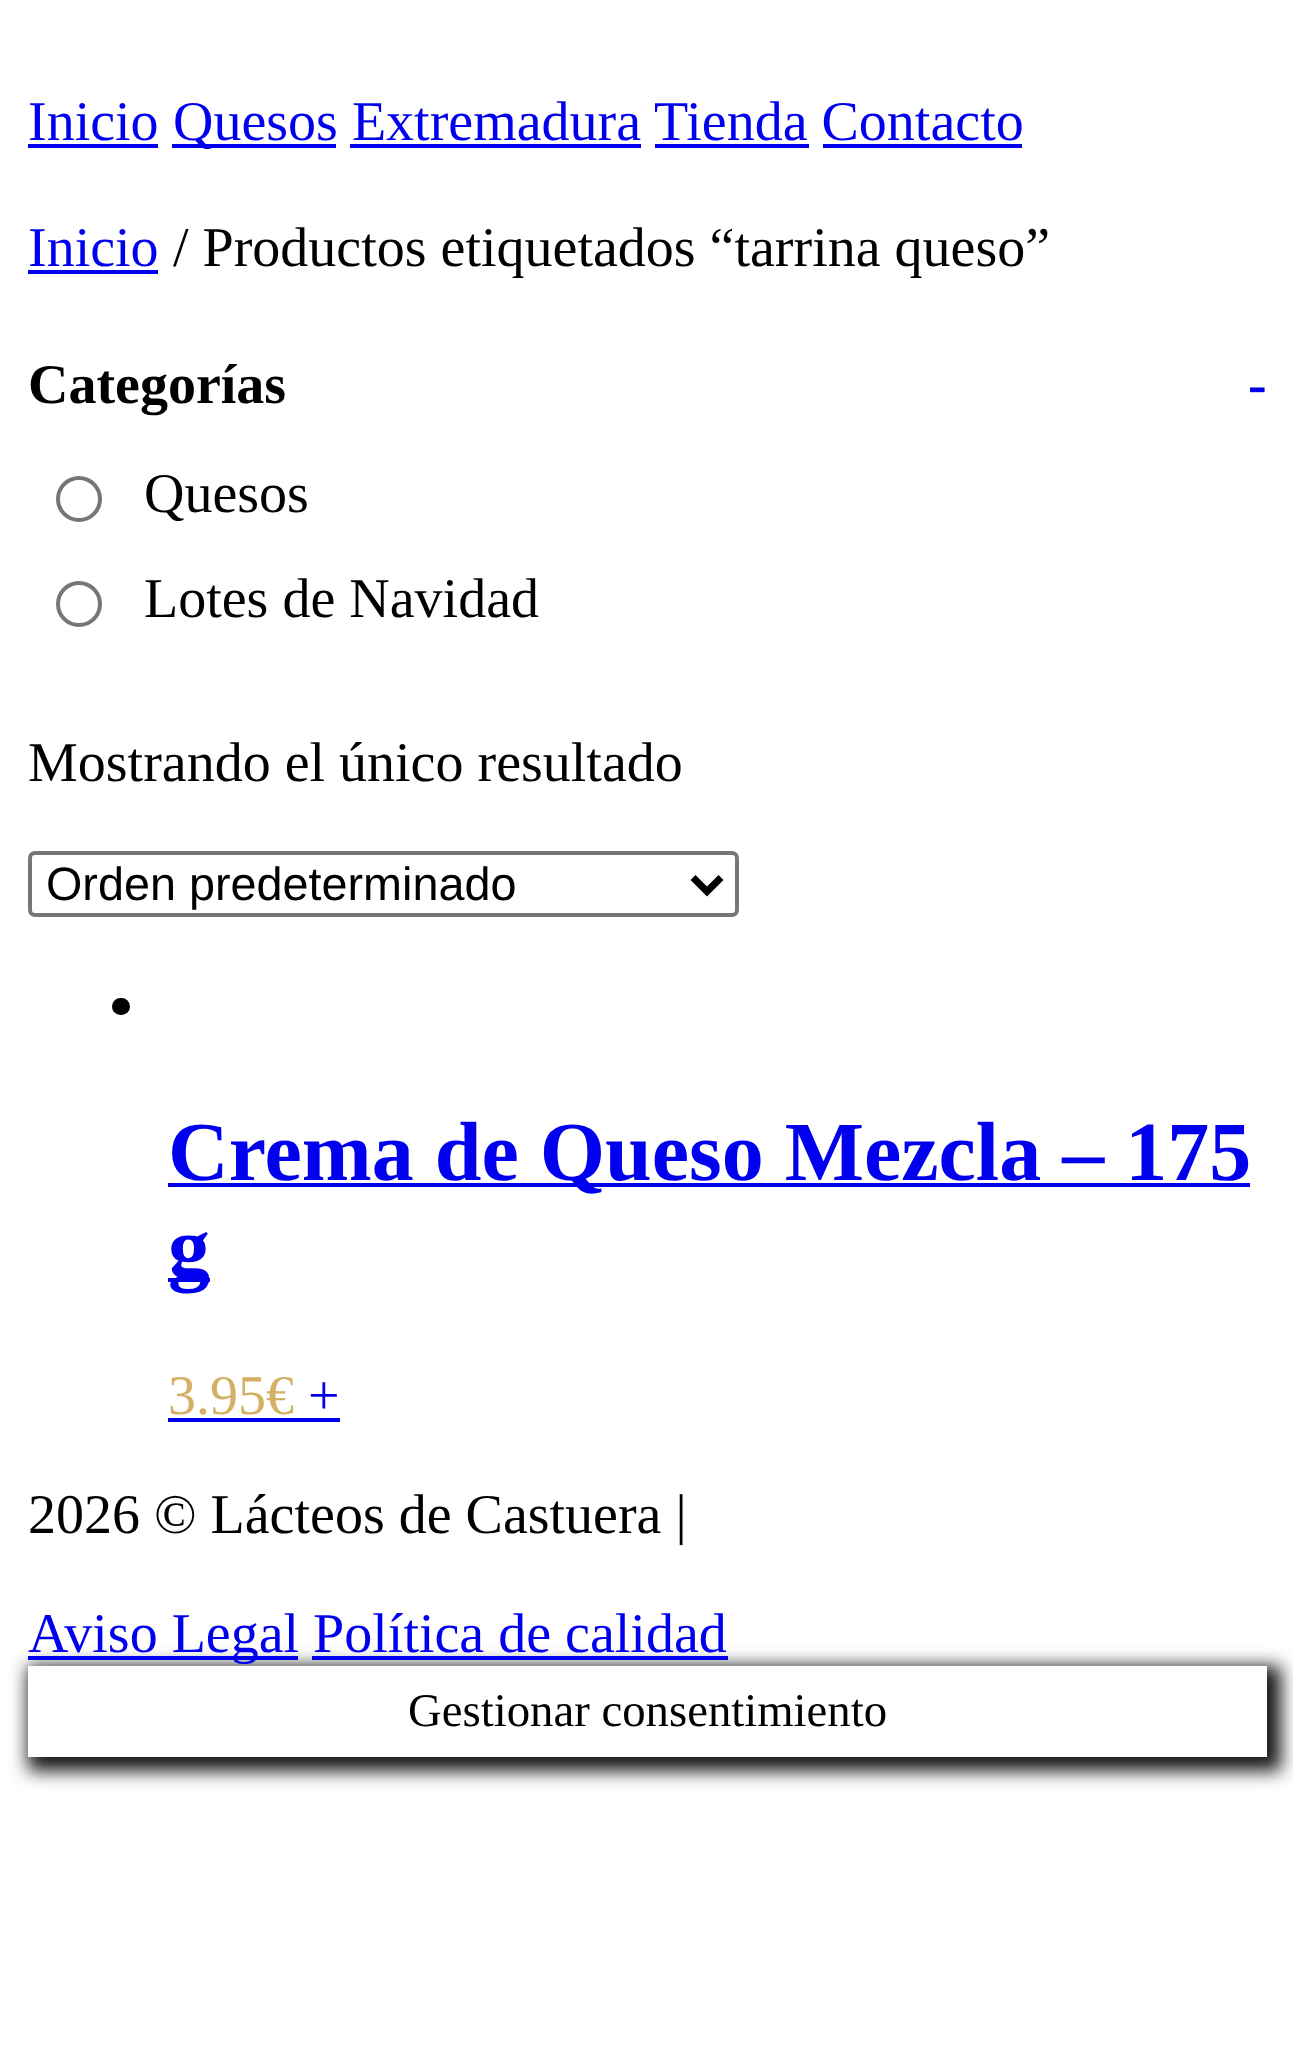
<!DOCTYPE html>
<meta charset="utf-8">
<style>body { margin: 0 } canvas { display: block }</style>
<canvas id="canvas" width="1293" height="2066"></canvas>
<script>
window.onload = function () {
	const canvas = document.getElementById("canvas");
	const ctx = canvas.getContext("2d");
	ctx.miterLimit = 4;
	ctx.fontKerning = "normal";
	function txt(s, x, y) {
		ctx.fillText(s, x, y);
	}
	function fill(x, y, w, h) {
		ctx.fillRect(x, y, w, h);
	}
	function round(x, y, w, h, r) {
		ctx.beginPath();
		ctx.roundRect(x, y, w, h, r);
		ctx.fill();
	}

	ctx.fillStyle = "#FFFFFF";
	fill(0, 0, 1293, 2066);
	ctx.fillStyle = "#0000EE";
	fill(28, 144, 130, 4);
	fill(172, 144, 164, 4);
	fill(655, 144, 154, 4);
	fill(350, 144, 291, 4);
	fill(823, 144, 199, 4);
	fill(28, 270, 130, 4);
	ctx.beginPath();
	ctx.arc(79, 499, 21, 0, Math.PI * 2);
	ctx.strokeStyle = "#767676";
	ctx.lineWidth = 4;
	ctx.stroke();
	ctx.beginPath();
	ctx.arc(79, 604, 21, 0, Math.PI * 2);
	ctx.stroke();
	ctx.beginPath();
	ctx.roundRect(30, 853, 707, 62, 5);
	ctx.stroke();
	ctx.beginPath();
	ctx.moveTo(693, 877.5);
	ctx.lineTo(707, 891.5);
	ctx.lineTo(721, 877.5);
	ctx.strokeStyle = "#000000";
	ctx.lineWidth = 7;
	ctx.stroke();
	ctx.fillStyle = "#000000";
	round(112, 998, 18, 17, 8.5);
	ctx.fillStyle = "#0000EE";
	fill(168, 1183, 1082, 4);
	fill(168, 1278, 42, 4);
	fill(168, 1418, 172, 4);
	ctx.save();
	ctx.beginPath();
	ctx.moveTo(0, 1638);
	ctx.lineTo(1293, 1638);
	ctx.lineTo(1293, 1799);
	ctx.lineTo(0, 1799);
	ctx.closePath();
	ctx.moveTo(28, 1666);
	ctx.lineTo(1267, 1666);
	ctx.lineTo(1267, 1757);
	ctx.lineTo(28, 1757);
	ctx.closePath();
	ctx.clip("evenodd");
	ctx.fillStyle = "#161616";
	ctx.filter = "blur(9px)";
	ctx.beginPath();
	ctx.rect(28, 1666, 1253, 105);
	ctx.fill();
	ctx.filter = "none";
	ctx.restore();
	fill(28, 1656, 270, 4);
	fill(312, 1656, 416, 4);
	ctx.font = "56px Liberation Serif";
	txt("Inicio", 28, 140);
	txt("Quesos Extremadura", 173, 140);
	txt("Tienda Contacto", 654, 140);
	txt("Inicio", 28, 266);
	ctx.fillStyle = "#000000";
	txt("/ Productos etiquetados “tarrina queso”", 173, 266);
	ctx.font = "bold 56px Liberation Serif";
	txt("Categorías", 28, 403);
	ctx.fillStyle = "#0000EE";
	txt("-", 1248, 403);
	ctx.font = "56px Liberation Serif";
	ctx.fillStyle = "#000000";
	txt("Quesos", 144, 512);
	txt("Lotes de Navidad", 144, 617);
	txt("Mostrando el único resultado", 28, 781);
	ctx.font = "46.75px Liberation Sans";
	txt("Orden predeterminado", 46, 900);
	ctx.font = "bold 84px Liberation Serif";
	ctx.fillStyle = "#0000EE";
	txt("Crema de Queso Mezcla – 175", 168, 1180);
	txt("g", 168, 1275);
	ctx.font = "56px Liberation Serif";
	ctx.fillStyle = "#D3B063";
	txt("3.95€", 168, 1414);
	ctx.fillStyle = "#0000EE";
	txt("+", 308, 1414);
	ctx.fillStyle = "#000000";
	txt("2026 © Lácteos de Castuera |", 28, 1533);
	ctx.fillStyle = "#0000EE";
	txt("Aviso Legal Política de calidad", 28, 1652);
	ctx.font = "46.75px Liberation Serif";
	ctx.fillStyle = "#000000";
	txt("Gestionar consentimiento", 408, 1726);
};
</script>
